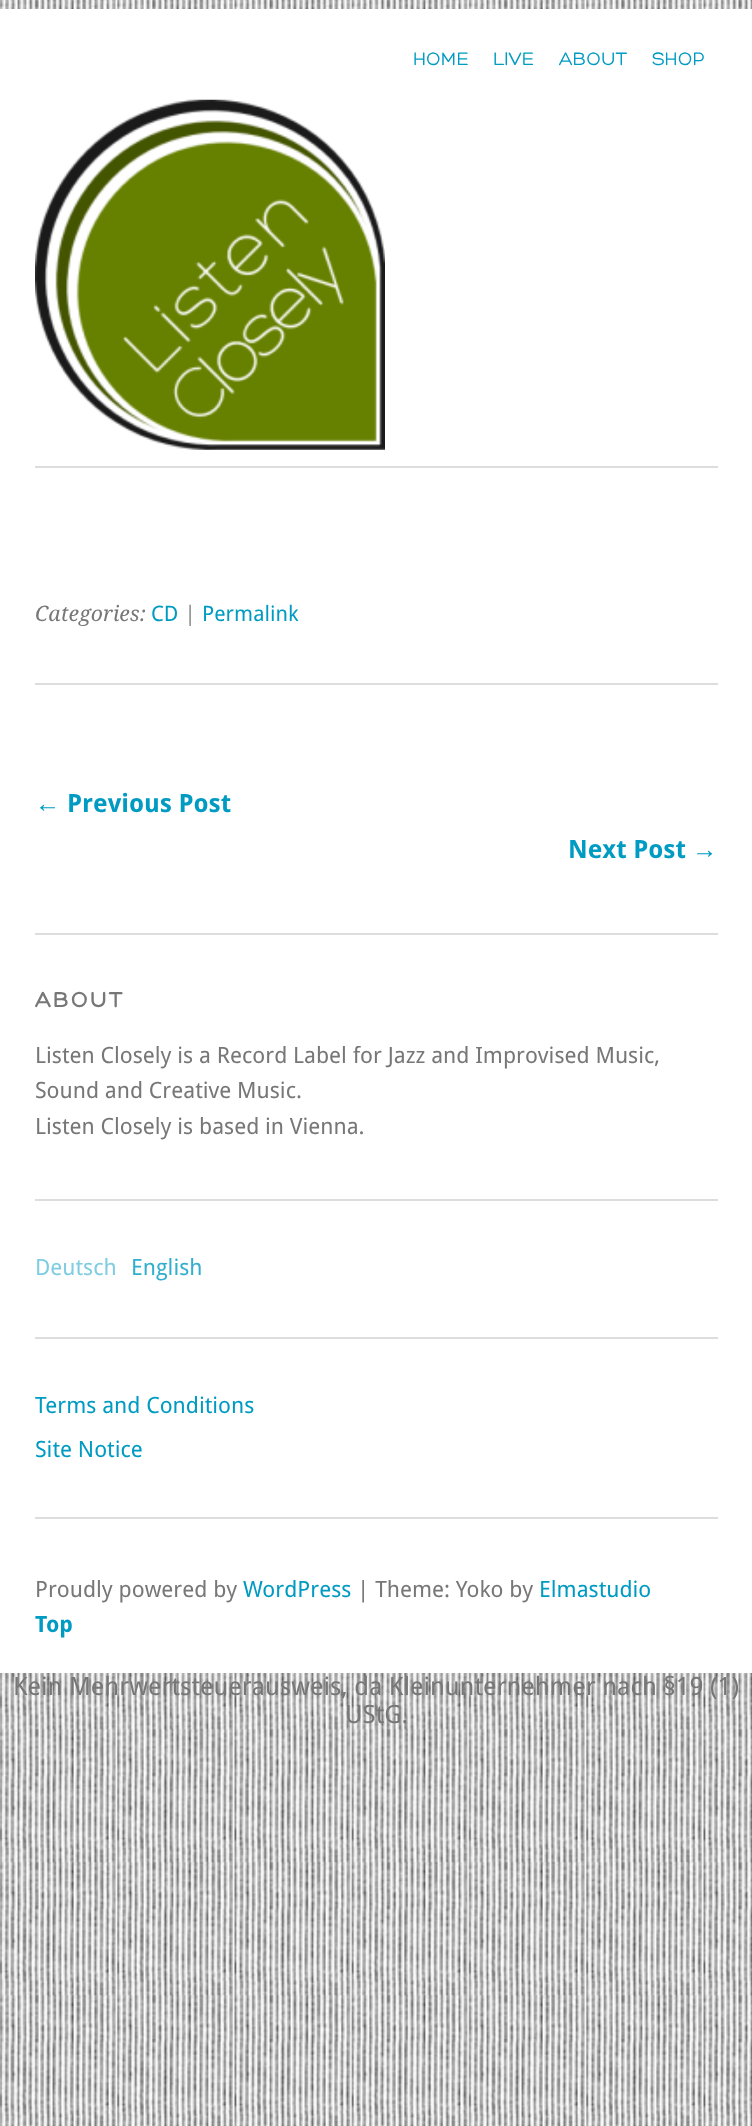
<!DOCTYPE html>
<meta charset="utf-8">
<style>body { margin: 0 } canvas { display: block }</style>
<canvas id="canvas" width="752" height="2126"></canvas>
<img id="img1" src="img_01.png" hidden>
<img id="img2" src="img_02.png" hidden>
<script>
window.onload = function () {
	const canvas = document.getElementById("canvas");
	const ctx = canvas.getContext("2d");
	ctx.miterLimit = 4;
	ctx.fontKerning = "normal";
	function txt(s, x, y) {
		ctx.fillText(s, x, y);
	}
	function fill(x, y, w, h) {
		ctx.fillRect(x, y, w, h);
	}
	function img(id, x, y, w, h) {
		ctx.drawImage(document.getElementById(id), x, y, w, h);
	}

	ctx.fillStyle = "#FFFFFF";
	fill(0, 0, 752, 2126);
	img("img1", 0, 0, 752, 2126);
	fill(0, 9, 752, 1664);
	img("img2", 35, 99, 350, 351);
	ctx.fillStyle = "#DDDDDD";
	fill(35, 466, 683, 2);
	fill(35, 1517, 683, 2);
	fill(35, 683, 683, 2);
	fill(35, 933, 683, 2);
	fill(35, 1199, 683, 2);
	fill(35, 1337, 683, 2);
	ctx.font = "19.5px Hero";
	ctx.fillStyle = "#009BC2";
	txt("HOME", 413, 65);
	txt("LIVE", 493, 65);
	txt("ABOUT", 559, 65);
	txt("SHOP", 652, 65);
	ctx.font = "italic 21.25px Droid Serif";
	ctx.fillStyle = "#777777";
	txt("Categories:", 35, 621);
	ctx.font = "21.25px Droid Sans";
	ctx.fillStyle = "#009BC2";
	txt("CD", 151, 621);
	ctx.font = "italic 21.25px Droid Serif";
	ctx.fillStyle = "#777777";
	txt("|", 184, 621);
	ctx.font = "21.25px Droid Sans";
	ctx.fillStyle = "#009BC2";
	txt("Permalink", 202, 621);
	ctx.font = "bold 25.2px Liberation Sans";
	txt("←", 35, 812);
	ctx.font = "bold 25.2px Droid Sans";
	txt("Previous Post", 67, 812);
	txt("Next Post", 568, 858);
	ctx.font = "bold 25.2px Liberation Sans";
	txt("→", 692, 858);
	ctx.letterSpacing = "2.25px";
	ctx.font = "bold 22.4px Hero";
	ctx.fillStyle = "#777777";
	txt("ABOUT", 35, 1007);
	ctx.letterSpacing = "0px";
	ctx.font = "22.4px Droid Sans";
	txt("Listen Closely is a Record Label for Jazz and Improvised Music,", 35, 1063);
	txt("Sound and Creative Music.", 35, 1098);
	txt("Listen Closely is based in Vienna.", 35, 1134);
	ctx.fillStyle = "#80CDE1";
	txt("Deutsch", 35, 1275);
	ctx.fillStyle = "#33AFCE";
	txt("English", 131, 1275);
	ctx.fillStyle = "#009BC2";
	txt("Terms and Conditions", 35, 1413);
	txt("Site Notice", 35, 1457);
	ctx.fillStyle = "#777777";
	txt("Proudly powered by", 35, 1597);
	ctx.fillStyle = "#009BC2";
	txt("WordPress", 243, 1597);
	ctx.fillStyle = "#777777";
	txt("| Theme: Yoko by", 357, 1597);
	ctx.fillStyle = "#009BC2";
	txt("Elmastudio", 539, 1597);
	ctx.font = "bold 22.4px Droid Sans";
	txt("Top", 35, 1632);
	ctx.font = "25.2px Droid Sans";
	ctx.fillStyle = "#777777";
	txt("Kein Mehrwertsteuerausweis, da Kleinunternehmer nach §19 (1)", 13, 1695);
	txt("UStG.", 345, 1723);
};
</script>
